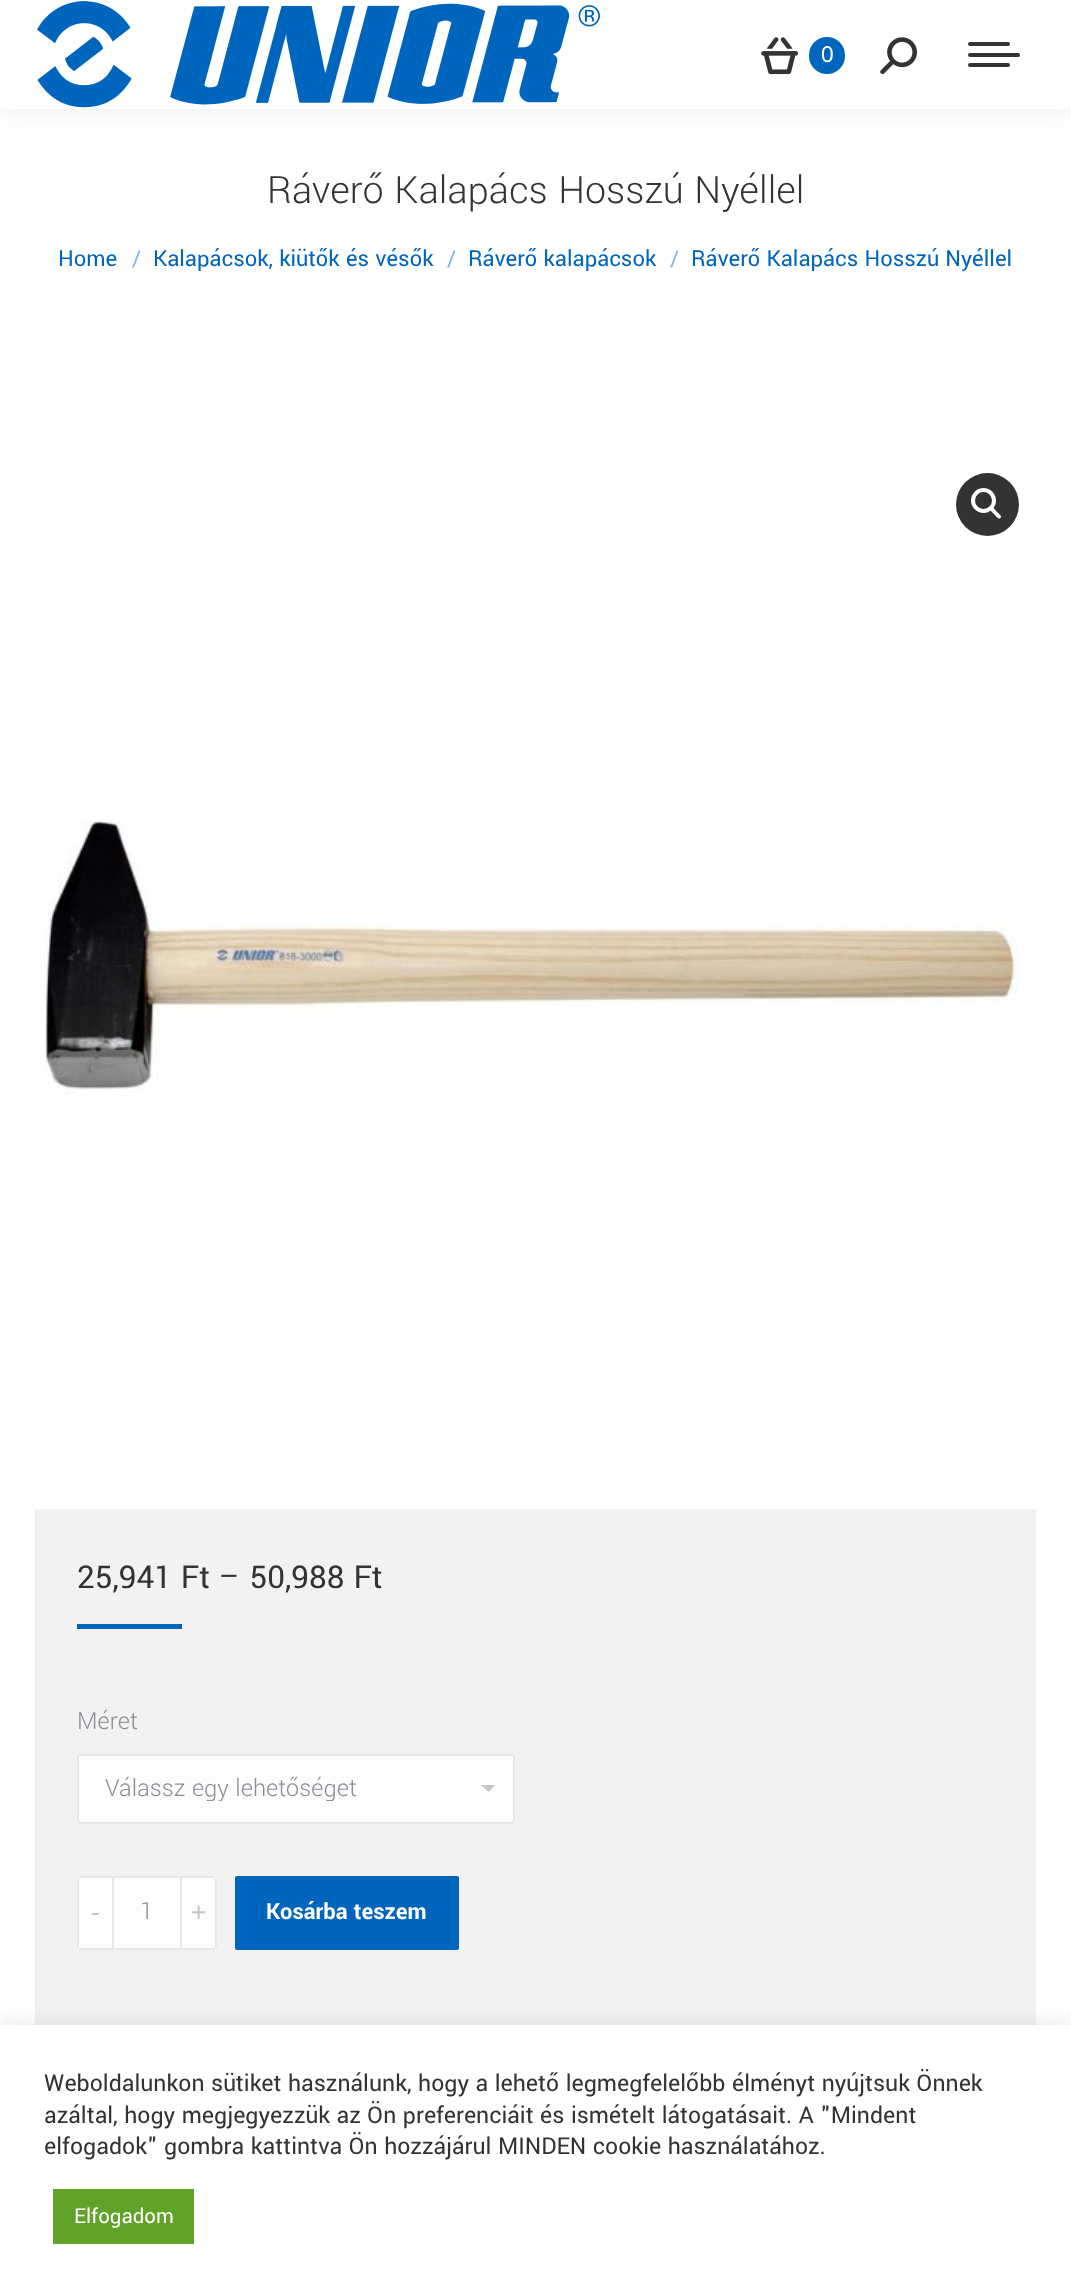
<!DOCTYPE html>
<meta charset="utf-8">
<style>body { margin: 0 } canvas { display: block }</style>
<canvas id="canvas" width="1071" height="2295"></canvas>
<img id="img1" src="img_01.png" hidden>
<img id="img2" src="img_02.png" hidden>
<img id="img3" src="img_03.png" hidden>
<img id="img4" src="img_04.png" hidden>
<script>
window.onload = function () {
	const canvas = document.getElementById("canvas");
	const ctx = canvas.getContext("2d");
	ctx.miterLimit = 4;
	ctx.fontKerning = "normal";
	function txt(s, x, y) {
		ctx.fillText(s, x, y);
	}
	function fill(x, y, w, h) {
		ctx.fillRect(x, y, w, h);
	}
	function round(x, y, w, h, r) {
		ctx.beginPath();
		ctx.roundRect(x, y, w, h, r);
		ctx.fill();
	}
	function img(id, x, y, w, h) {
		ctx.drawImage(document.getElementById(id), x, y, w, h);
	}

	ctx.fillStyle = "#FFFFFF";
	fill(0, 0, 1071, 2295);
	ctx.fillStyle = "rgba(0, 0, 0, 0.07)";
	ctx.filter = "blur(13px)";
	ctx.beginPath();
	ctx.rect(-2, -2, 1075, 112);
	ctx.fill();
	ctx.filter = "none";
	ctx.fillStyle = "#FFFFFF";
	fill(0, 0, 1071, 109);
	img("img1", 37, 1, 563, 107);
	img("img2", 761, 37, 37, 38);
	ctx.fillStyle = "#0065BD";
	round(809, 37, 36, 37, 18);
	img("img3", 880, 37, 37, 37);
	ctx.fillStyle = "#333333";
	round(968, 42, 42, 4, 2);
	round(968, 53, 52, 4, 2);
	round(968, 63, 42, 4, 2);
	ctx.beginPath();
	ctx.arc(987.5, 504.5, 31.5, 0, Math.PI * 2);
	ctx.fill();
	ctx.beginPath();
	ctx.arc(983.5, 500.5, 10.5, 0, Math.PI * 2);
	ctx.strokeStyle = "#FFFFFF";
	ctx.lineWidth = 4;
	ctx.stroke();
	ctx.fillStyle = "#FFFFFF";
	ctx.beginPath();
	ctx.moveTo(991, 508);
	ctx.bezierCurveTo(993, 506, 996, 511, 997, 512);
	ctx.bezierCurveTo(998, 513, 1002.5, 516, 1000.5, 518);
	ctx.bezierCurveTo(998.5, 520, 995.5, 515.5, 994.5, 514.5);
	ctx.bezierCurveTo(993.5, 513.5, 989, 510, 991, 508);
	ctx.closePath();
	ctx.fill();
	img("img4", 44, 821, 975, 273);
	ctx.fillStyle = "#F2F2F2";
	fill(35, 1509, 1001, 516);
	ctx.fillStyle = "#0065BD";
	fill(77, 1624, 105, 5);
	ctx.fillStyle = "#FDFDFD";
	round(77, 1754, 438, 70, 4);
	ctx.fillStyle = "#C4C5C9";
	ctx.beginPath();
	ctx.moveTo(481, 1785);
	ctx.lineTo(488.5, 1792);
	ctx.lineTo(495, 1785);
	ctx.closePath();
	ctx.fill();
	ctx.beginPath();
	ctx.roundRect(78, 1755, 436, 68, 3);
	ctx.strokeStyle = "rgba(51, 51, 51, 0.11)";
	ctx.lineWidth = 2;
	ctx.stroke();
	ctx.fillStyle = "#FDFDFD";
	ctx.beginPath();
	ctx.roundRect(77, 1876, 35, 74, [4, 0, 0, 4]);
	ctx.fill();
	ctx.fillStyle = "rgba(51, 51, 51, 0.11)";
	fill(79, 1876, 33, 2);
	fill(79, 1948, 33, 2);
	fill(77, 1878, 2, 70);
	ctx.fillStyle = "#FDFDFD";
	ctx.beginPath();
	ctx.rect(113, 1877, 68, 72);
	ctx.fill();
	ctx.strokeStyle = "#E7E7E7";
	ctx.stroke();
	ctx.beginPath();
	ctx.roundRect(182, 1876, 35, 74, [0, 4, 4, 0]);
	ctx.fill();
	ctx.fillStyle = "rgba(51, 51, 51, 0.11)";
	fill(182, 1876, 33, 2);
	fill(215, 1878, 2, 70);
	fill(182, 1948, 33, 2);
	ctx.fillStyle = "#0065BD";
	round(235, 1876, 224, 74, 2);
	ctx.fillStyle = "rgba(172, 171, 171, 0.3)";
	ctx.filter = "blur(9px)";
	ctx.beginPath();
	ctx.rect(0, 2023, 1071, 271);
	ctx.fill();
	ctx.filter = "none";
	ctx.fillStyle = "#FFFFFF";
	fill(0, 2025, 1071, 270);
	ctx.fillStyle = "#61A229";
	fill(53, 2189, 141, 55);
	ctx.font = "22.75px Liberation Sans";
	ctx.fillStyle = "#FFFFFF";
	txt("0", 821, 62);
	ctx.font = "300 42px Yantramanav";
	ctx.fillStyle = "#333333";
	txt("Ráverő Kalapács Hosszú Nyéllel", 267, 203);
	ctx.font = "24.5px Yantramanav";
	ctx.fillStyle = "#0065BD";
	txt("Home", 58, 266);
	ctx.fillStyle = "#80B2DE";
	txt("/", 132, 266);
	ctx.fillStyle = "#0065BD";
	txt("Kalapácsok, kiütők és vésők", 153, 266);
	ctx.fillStyle = "#80B2DE";
	txt("/", 447, 266);
	ctx.fillStyle = "#0065BD";
	txt("Ráverő kalapácsok", 468, 266);
	ctx.fillStyle = "#80B2DE";
	txt("/", 670, 266);
	ctx.fillStyle = "#0065BD";
	txt("Ráverő Kalapács Hosszú Nyéllel", 691, 266);
	ctx.font = "35px Yantramanav";
	ctx.fillStyle = "#333333";
	txt("25,941 Ft – 50,988 Ft", 77, 1588);
	ctx.font = "300 26.25px Yantramanav";
	ctx.fillStyle = "#8B8D94";
	txt("Méret", 77, 1729);
	ctx.save();
	ctx.beginPath();
	ctx.rect(105, 1775, 355, 26);
	ctx.clip();
	txt("Válassz egy lehetőséget", 105, 1796);
	ctx.restore();
	ctx.font = "26.25px Liberation Sans";
	ctx.fillStyle = "#C4C5C9";
	txt("-", 91, 1921);
	ctx.font = "300 26.25px Yantramanav";
	ctx.fillStyle = "#8B8D94";
	txt("1", 140, 1919);
	ctx.font = "26.25px Liberation Sans";
	ctx.fillStyle = "#C4C5C9";
	txt("+", 191, 1921);
	ctx.font = "bold 24.5px Yantramanav";
	ctx.fillStyle = "#FFFFFF";
	txt("Kosárba teszem", 266, 1919);
	ctx.font = "25.65px Yantramanav";
	ctx.fillStyle = "#333333";
	txt("Weboldalunkon sütiket használunk, hogy a lehető legmegfelelőbb élményt nyújtsuk Önnek", 44, 2091);
	txt("azáltal, hogy megjegyezzük az Ön preferenciáit és ismételt látogatásait. A \"Mindent", 44, 2123);
	txt("elfogadok\" gombra kattintva Ön hozzájárul MINDEN cookie használatához.", 44, 2154);
	ctx.font = "22.75px Yantramanav";
	ctx.fillStyle = "#FFFFFF";
	txt("Elfogadom", 74, 2223);
};
</script>
